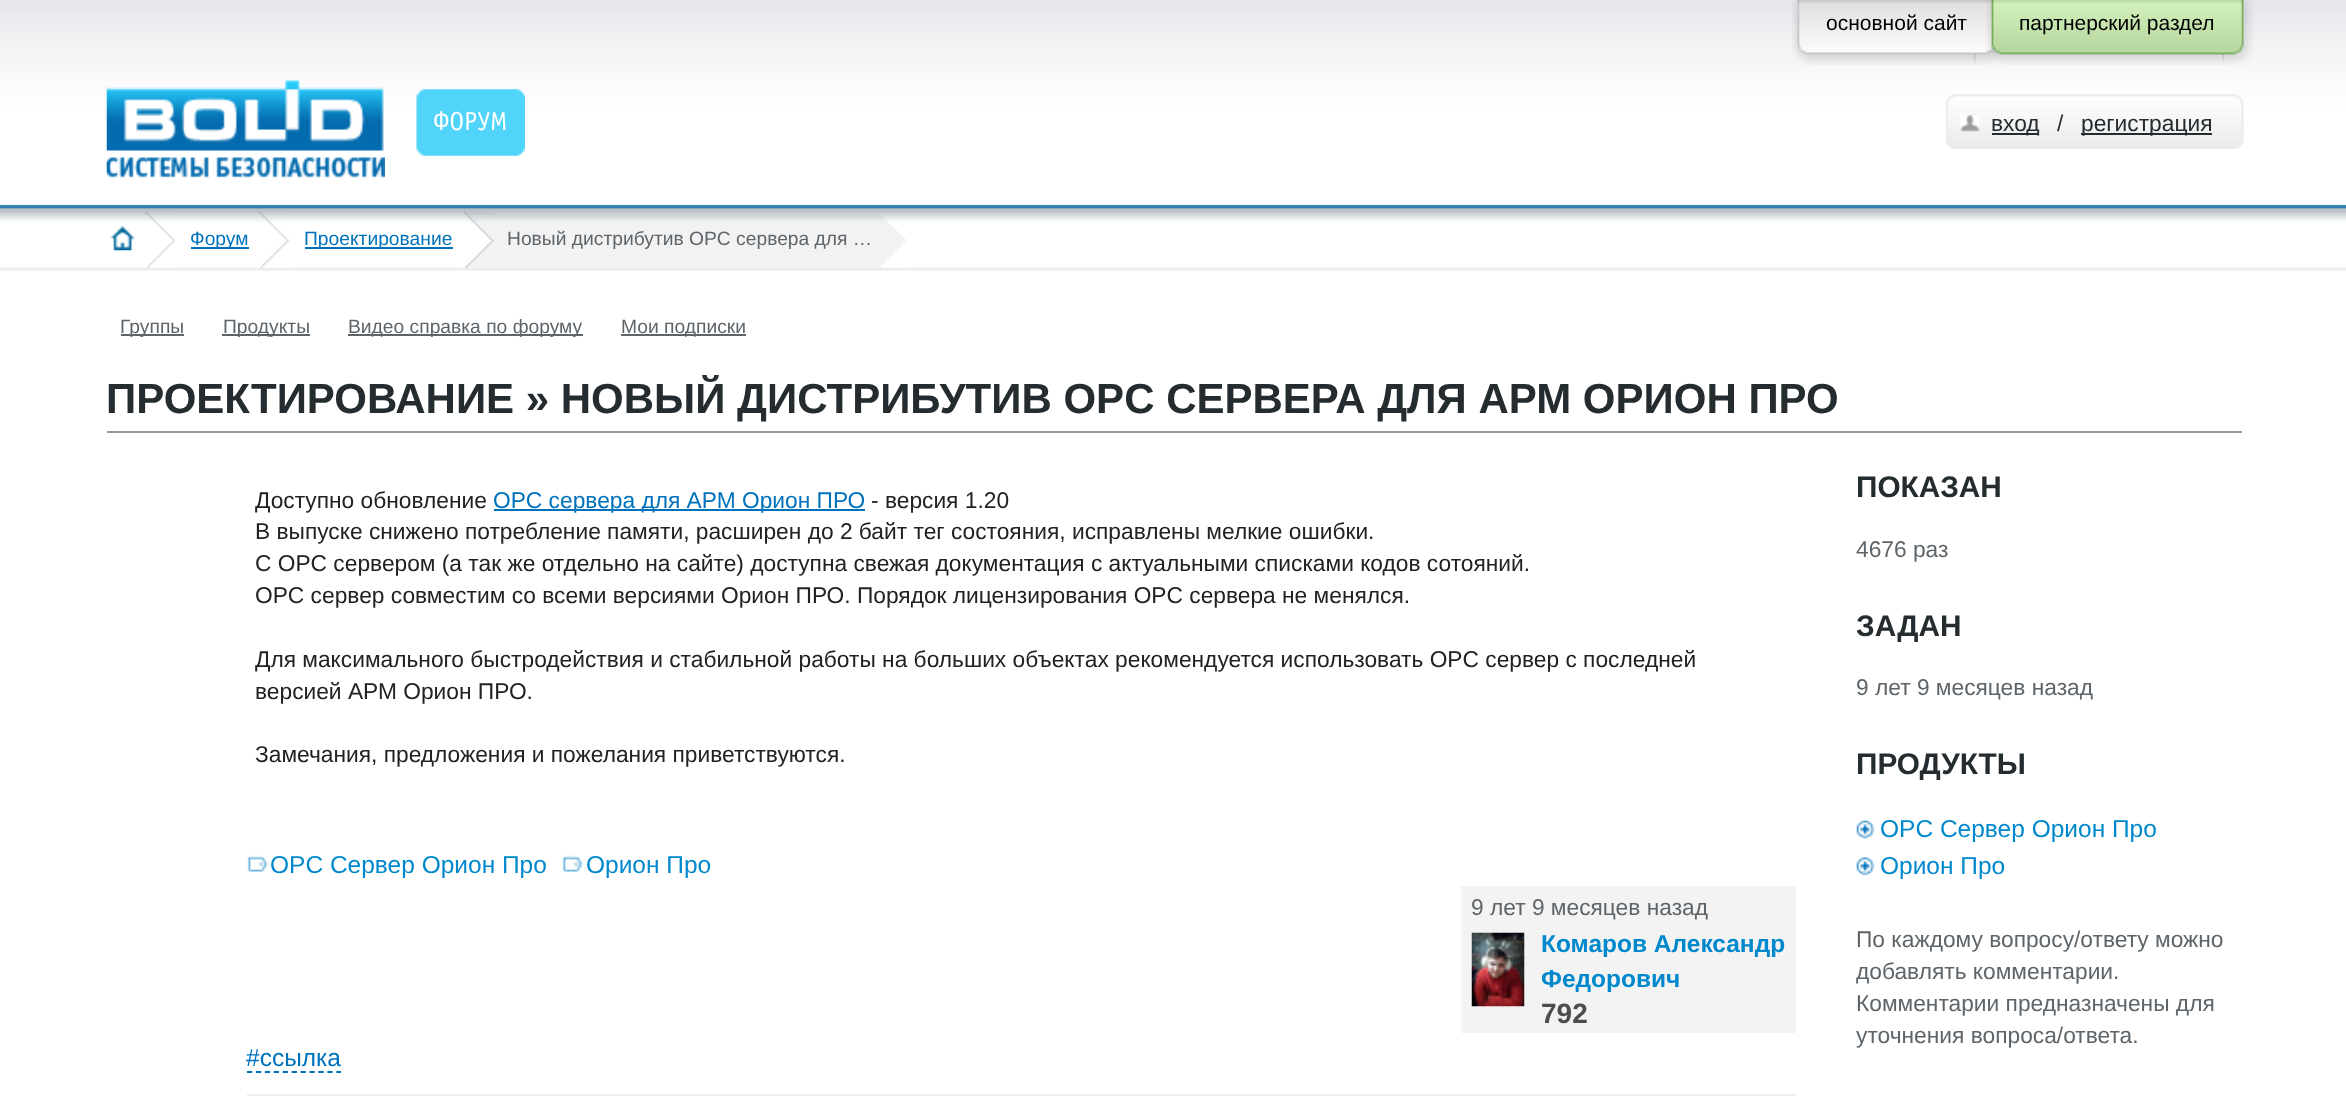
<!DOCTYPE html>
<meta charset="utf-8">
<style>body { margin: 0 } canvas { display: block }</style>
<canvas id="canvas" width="2346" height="1119"></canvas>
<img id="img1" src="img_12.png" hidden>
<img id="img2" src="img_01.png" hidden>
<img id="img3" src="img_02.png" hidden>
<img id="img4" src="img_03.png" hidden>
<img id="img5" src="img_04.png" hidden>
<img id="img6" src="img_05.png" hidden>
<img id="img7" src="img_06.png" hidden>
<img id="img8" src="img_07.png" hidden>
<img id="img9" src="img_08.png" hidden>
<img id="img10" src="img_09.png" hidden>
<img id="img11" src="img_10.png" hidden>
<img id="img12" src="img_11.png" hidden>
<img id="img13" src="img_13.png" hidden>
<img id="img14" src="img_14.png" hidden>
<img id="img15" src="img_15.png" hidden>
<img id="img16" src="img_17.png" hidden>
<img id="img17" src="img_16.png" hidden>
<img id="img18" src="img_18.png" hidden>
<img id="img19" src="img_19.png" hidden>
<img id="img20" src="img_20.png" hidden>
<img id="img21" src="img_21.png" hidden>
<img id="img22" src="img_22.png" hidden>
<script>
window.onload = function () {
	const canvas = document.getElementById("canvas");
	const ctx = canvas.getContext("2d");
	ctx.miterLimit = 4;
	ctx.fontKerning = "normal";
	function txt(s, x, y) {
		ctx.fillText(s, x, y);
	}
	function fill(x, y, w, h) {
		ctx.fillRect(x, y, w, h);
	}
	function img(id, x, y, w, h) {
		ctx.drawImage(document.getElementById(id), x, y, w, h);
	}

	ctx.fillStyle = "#FFFFFF";
	fill(0, 0, 2346, 1119);
	img("img1", 0, 204, 2346, 67);
	img("img2", 0, 0, 2346, 205);
	img("img3", 1973, 0, 29, 65);
	img("img4", 1792, 0, 184, 65);
	img("img5", 2222, 0, 31, 65);
	img("img6", 1986, 0, 239, 65);
	img("img7", 106, 80, 279, 98);
	img("img8", 514, 89, 11, 67);
	img("img9", 416, 89, 101, 67);
	img("img10", 1946, 94, 289, 55);
	img("img11", 1953, 94, 291, 55);
	img("img12", 1960, 115, 20, 17);
	ctx.fillStyle = "#252C30";
	fill(1992, 133, 47, 2);
	fill(2081, 133, 131, 2);
	img("img13", 145, 211, 30, 57);
	img("img14", 110, 225, 25, 26);
	img("img15", 259, 211, 30, 57);
	ctx.fillStyle = "#0072BC";
	fill(191, 247, 58, 2);
	img("img16", 486, 214, 421, 54);
	img("img17", 463, 211, 31, 57);
	fill(305, 247, 148, 2);
	img("img18", 463, 211, 31, 57);
	ctx.fillStyle = "#5E656A";
	fill(121, 334, 63, 2);
	fill(222, 334, 88, 2);
	fill(348, 334, 235, 2);
	fill(621, 334, 125, 2);
	ctx.fillStyle = "#999999";
	fill(107, 431, 2135, 2);
	ctx.fillStyle = "#0072BC";
	fill(494, 509, 371, 2);
	img("img19", 247, 855, 21, 17);
	img("img19", 562, 855, 21, 17);
	ctx.fillStyle = "#F3F3F3";
	fill(1461, 886, 335, 147);
	img("img20", 1471, 932, 54, 75);
	ctx.fillStyle = "#EEEEEE";
	fill(247, 1094, 1549, 2);
	ctx.beginPath();
	ctx.moveTo(247, 1072);
	ctx.lineTo(341, 1072);
	ctx.strokeStyle = "#0072BC";
	ctx.lineWidth = 1.8;
	ctx.setLineDash([5.25, 3.68]);
	ctx.stroke();
	img("img21", 1856, 820, 19, 19);
	img("img22", 1856, 857, 19, 18);
	ctx.font = "21px Liberation Sans";
	ctx.fillStyle = "#000000";
	txt("основной сайт", 1826, 30);
	txt("партнерский раздел", 2019, 30);
	ctx.font = "26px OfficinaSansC";
	ctx.fillStyle = "#FFFFFF";
	txt("ФОРУМ", 433, 130);
	ctx.font = "22.75px Liberation Sans";
	ctx.fillStyle = "#252C30";
	txt("вход", 1991, 131);
	txt("/", 2057, 131);
	txt("регистрация", 2081, 131);
	ctx.font = "19.25px Liberation Sans";
	ctx.fillStyle = "#0072BC";
	txt("Форум", 190, 245);
	txt("Проектирование", 304, 245);
	ctx.fillStyle = "#5E656A";
	txt("Новый дистрибутив OPC сервера для …", 507, 245);
	txt("Группы", 120, 333);
	txt("Продукты", 223, 333);
	txt("Видео справка по форуму", 348, 333);
	txt("Мои подписки", 621, 333);
	ctx.font = "bold 42px Liberation Sans";
	ctx.fillStyle = "#252C30";
	txt("ПРОЕКТИРОВАНИЕ » НОВЫЙ ДИСТРИБУТИВ OPC СЕРВЕРА ДЛЯ АРМ ОРИОН ПРО", 106, 413);
	ctx.font = "22.75px Liberation Sans";
	ctx.fillStyle = "#222222";
	txt("Доступно обновление", 255, 508);
	ctx.fillStyle = "#0072BC";
	txt("OPC сервера для АРМ Орион ПРО", 493, 508);
	ctx.fillStyle = "#222222";
	txt("- версия 1.20", 871, 508);
	txt("В выпуске снижено потребление памяти, расширен до 2 байт тег состояния, исправлены мелкие ошибки.", 255, 539);
	txt("С OPC сервером (а так же отдельно на сайте) доступна свежая документация с актуальными списками кодов сотояний.", 255, 571);
	txt("OPC сервер совместим со всеми версиями Орион ПРО. Порядок лицензирования OPC сервера не менялся.", 255, 603);
	txt("Для максимального быстродействия и стабильной работы на больших объектах рекомендуется использовать OPC сервер с последней", 255, 667);
	txt("версией АРМ Орион ПРО.", 255, 699);
	txt("Замечания, предложения и пожелания приветствуются.", 255, 762);
	ctx.font = "24.5px Liberation Sans";
	ctx.fillStyle = "#0088CC";
	txt("OPC Сервер Орион Про", 270, 873);
	txt("Орион Про", 586, 873);
	ctx.font = "22.75px Liberation Sans";
	ctx.fillStyle = "#5E656A";
	txt("9 лет 9 месяцев назад", 1471, 915);
	ctx.font = "bold 24.5px Liberation Sans";
	ctx.fillStyle = "#0088CC";
	txt("Комаров Александр", 1541, 952);
	ctx.save();
	ctx.beginPath();
	ctx.rect(1542, 928, 245, 68);
	ctx.clip();
	txt("Федорович", 1541, 987);
	ctx.restore();
	ctx.font = "bold 28px Liberation Sans";
	ctx.fillStyle = "#4D4D4D";
	txt("792", 1541, 1023);
	ctx.font = "24.5px Liberation Sans";
	ctx.fillStyle = "#0072BC";
	txt("#ссылка", 246, 1066);
	ctx.font = "bold 29.75px Liberation Sans";
	ctx.fillStyle = "#252C30";
	txt("ПОКАЗАН", 1856, 497);
	ctx.font = "22.75px Liberation Sans";
	ctx.fillStyle = "#5E656A";
	txt("4676 раз", 1856, 557);
	ctx.font = "bold 29.75px Liberation Sans";
	ctx.fillStyle = "#252C30";
	txt("ЗАДАН", 1856, 636);
	ctx.font = "22.75px Liberation Sans";
	ctx.fillStyle = "#5E656A";
	txt("9 лет 9 месяцев назад", 1856, 695);
	ctx.font = "bold 29.75px Liberation Sans";
	ctx.fillStyle = "#252C30";
	txt("ПРОДУКТЫ", 1856, 774);
	ctx.font = "24.5px Liberation Sans";
	ctx.fillStyle = "#0088CC";
	txt("OPC Сервер Орион Про", 1880, 837);
	txt("Орион Про", 1880, 874);
	ctx.font = "22.75px Liberation Sans";
	ctx.fillStyle = "#5E656A";
	txt("По каждому вопросу/ответу можно", 1856, 947);
	txt("добавлять комментарии.", 1856, 979);
	txt("Комментарии предназначены для", 1856, 1011);
	txt("уточнения вопроса/ответа.", 1856, 1043);
};
</script>
